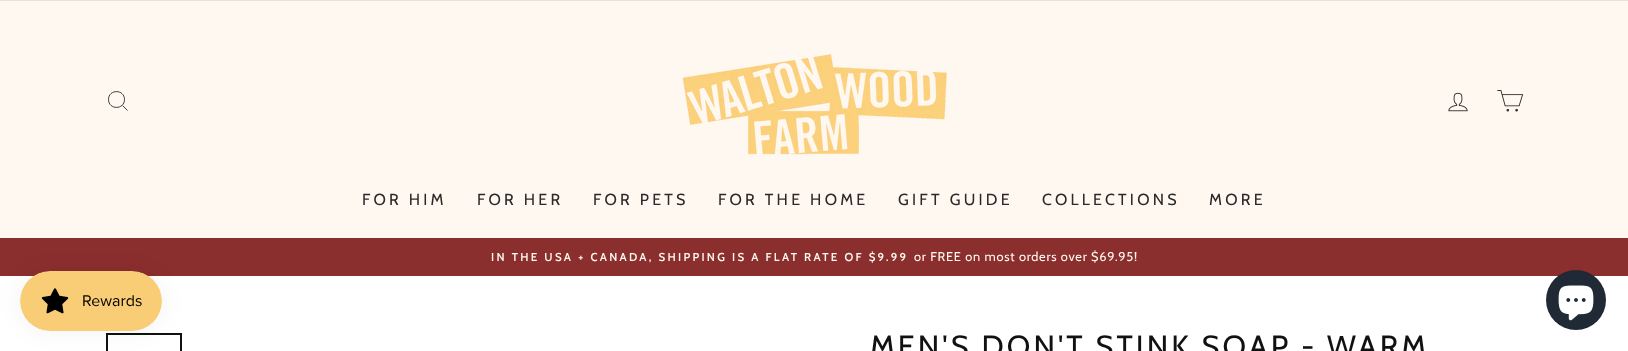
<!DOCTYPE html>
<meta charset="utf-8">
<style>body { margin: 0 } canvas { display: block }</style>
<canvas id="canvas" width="1628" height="351"></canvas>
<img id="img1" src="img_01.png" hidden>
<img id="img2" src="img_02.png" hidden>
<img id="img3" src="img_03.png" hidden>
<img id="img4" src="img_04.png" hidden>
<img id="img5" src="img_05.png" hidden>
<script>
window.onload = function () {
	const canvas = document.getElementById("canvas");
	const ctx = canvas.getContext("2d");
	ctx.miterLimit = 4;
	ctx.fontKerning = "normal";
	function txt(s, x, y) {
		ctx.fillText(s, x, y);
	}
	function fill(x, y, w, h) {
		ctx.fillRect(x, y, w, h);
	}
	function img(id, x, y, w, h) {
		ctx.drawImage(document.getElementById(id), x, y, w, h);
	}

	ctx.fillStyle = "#FFFFFF";
	fill(0, 0, 1628, 351);
	ctx.fillStyle = "#FFF8F0";
	fill(0, 1, 1628, 237);
	ctx.fillStyle = "#8B2E2E";
	fill(0, 238, 1628, 38);
	ctx.strokeStyle = "#111111";
	ctx.lineWidth = 2;
	ctx.strokeRect(107, 334, 74, 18);
	ctx.fillStyle = "rgba(0, 0, 0, 0.05)";
	ctx.filter = "blur(12.5px)";
	ctx.beginPath();
	ctx.roundRect(20, 271, 142, 60, 30);
	ctx.fill();
	ctx.filter = "none";
	img("img1", 20, 271, 142, 60);
	ctx.fillStyle = "#EAE3DC";
	fill(0, 0, 1628, 1);
	ctx.beginPath();
	ctx.moveTo(124.5, 99.5);
	ctx.bezierCurveTo(124.5, 110, 108.5, 110, 108.5, 99.5);
	ctx.bezierCurveTo(108.5, 89, 124.5, 89, 124.5, 99.5);
	ctx.closePath();
	ctx.moveTo(127.5, 110.5);
	ctx.lineTo(122.5, 105.5);
	ctx.strokeStyle = "#292929";
	ctx.lineWidth = 0.9;
	ctx.stroke();
	img("img2", 682, 54, 265, 101);
	img("img3", 1448, 92, 20, 20);
	img("img4", 1497, 90, 27, 22);
	ctx.fillStyle = "#202A36";
	ctx.beginPath();
	ctx.arc(1576, 300, 30, 0, Math.PI * 2);
	ctx.fill();
	img("img5", 1558, 285, 36, 36);
	ctx.letterSpacing = "3.25px";
	ctx.font = "16px Cabin";
	ctx.fillStyle = "#292929";
	txt("FOR HIM", 362, 205);
	txt("FOR HER", 477, 205);
	txt("FOR PETS", 593, 205);
	txt("FOR THE HOME", 718, 205);
	txt("GIFT GUIDE", 898, 205);
	txt("COLLECTIONS", 1042, 205);
	txt("MORE", 1209, 205);
	ctx.letterSpacing = "2.3px";
	ctx.font = "600 11.45px Cabin";
	ctx.fillStyle = "#FFF8F0";
	txt("IN THE USA + CANADA, SHIPPING IS A FLAT RATE OF $9.99", 491, 261);
	ctx.letterSpacing = "0.75px";
	ctx.font = "12.75px Cabin";
	txt("or FREE on most orders over $69.95!", 914, 261);
	ctx.letterSpacing = "3.05px";
	ctx.font = "30.6px Cabin";
	ctx.fillStyle = "#111111";
	txt("MEN'S DON'T STINK SOAP - WARM", 870, 357);
};
</script>
